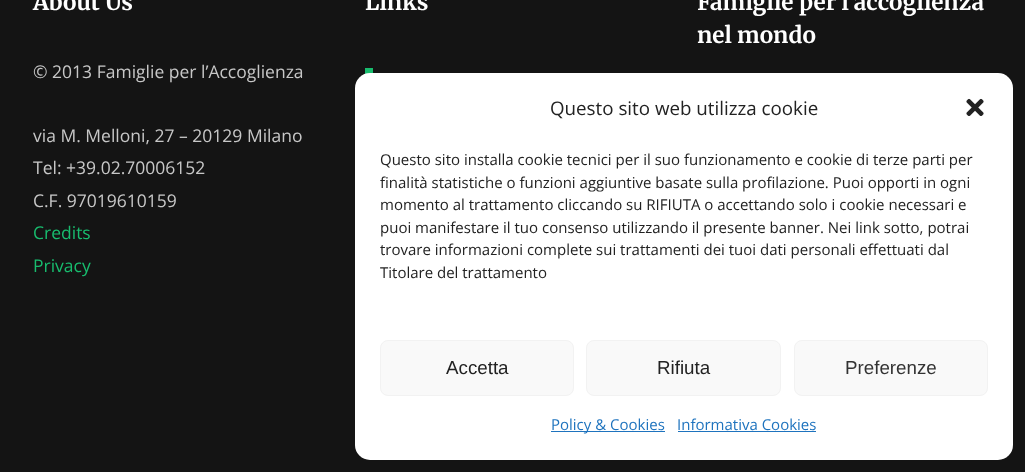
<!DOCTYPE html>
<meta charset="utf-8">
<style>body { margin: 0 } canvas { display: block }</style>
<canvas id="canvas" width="1025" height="472"></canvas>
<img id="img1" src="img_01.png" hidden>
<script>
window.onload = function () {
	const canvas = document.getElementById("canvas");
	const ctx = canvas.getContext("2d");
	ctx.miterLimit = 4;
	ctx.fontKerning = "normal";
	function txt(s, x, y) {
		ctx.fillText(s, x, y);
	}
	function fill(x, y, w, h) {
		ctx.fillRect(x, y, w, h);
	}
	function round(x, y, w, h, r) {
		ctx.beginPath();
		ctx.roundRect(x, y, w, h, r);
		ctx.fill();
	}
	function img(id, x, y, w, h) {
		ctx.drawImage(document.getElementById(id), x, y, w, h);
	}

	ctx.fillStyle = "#141414";
	fill(0, 0, 1025, 472);
	ctx.fillStyle = "#18BC6E";
	fill(365, 68, 8, 6);
	ctx.fillStyle = "#FFFFFF";
	round(355, 73, 658, 387, 15);
	img("img1", 966, 98, 18, 18);
	ctx.fillStyle = "#F9F9F9";
	ctx.beginPath();
	ctx.roundRect(380.5, 340.5, 193, 55, 7.5);
	ctx.fill();
	ctx.strokeStyle = "#F2F2F2";
	ctx.stroke();
	ctx.beginPath();
	ctx.roundRect(586.5, 340.5, 194, 55, 7.5);
	ctx.fill();
	ctx.stroke();
	ctx.beginPath();
	ctx.roundRect(794.5, 340.5, 193, 55, 7.5);
	ctx.fill();
	ctx.stroke();
	ctx.fillStyle = "#1E73BE";
	fill(551, 431, 114, 1);
	fill(678, 431, 138, 1);
	ctx.font = "bold 22.5px Merriweather";
	ctx.fillStyle = "#FFFFFF";
	txt("About Us", 33, 10);
	ctx.font = "17.5px Open Sans";
	ctx.fillStyle = "#C7C7C7";
	txt("© 2013 Famiglie per l’Accoglienza", 33, 78);
	txt("via M. Melloni, 27 – 20129 Milano", 33, 142);
	txt("Tel: +39.02.70006152", 33, 174);
	txt("C.F. 97019610159", 33, 207);
	ctx.fillStyle = "#18BC6E";
	txt("Credits", 33, 239);
	txt("Privacy", 33, 272);
	ctx.font = "bold 22.5px Merriweather";
	ctx.fillStyle = "#FFFFFF";
	txt("Links", 365, 10);
	txt("Famiglie per l’accoglienza", 697, 10);
	txt("nel mondo", 697, 43);
	ctx.font = "18.75px Open Sans";
	ctx.fillStyle = "#222222";
	txt("Questo sito web utilizza cookie", 550, 115);
	ctx.font = "15px Open Sans";
	txt("Questo sito installa cookie tecnici per il suo funzionamento e cookie di terze parti per", 380, 165);
	txt("finalità statistiche o funzioni aggiuntive basate sulla profilazione. Puoi opporti in ogni", 380, 188);
	txt("momento al trattamento cliccando su RIFIUTA o accettando solo i cookie necessari e", 380, 210);
	txt("puoi manifestare il tuo consenso utilizzando il presente banner. Nei link sotto, potrai", 380, 233);
	txt("trovare informazioni complete sui trattamenti dei tuoi dati personali effettuati dal", 380, 255);
	txt("Titolare del trattamento", 380, 278);
	ctx.font = "18.75px Liberation Sans";
	txt("Accetta", 446, 374);
	txt("Rifiuta", 657, 374);
	ctx.fillStyle = "#333333";
	txt("Preferenze", 845, 374);
	ctx.font = "15px Open Sans";
	ctx.fillStyle = "#1E73BE";
	txt("Policy & Cookies", 551, 430);
	txt("Informativa Cookies", 677, 430);
};
</script>
